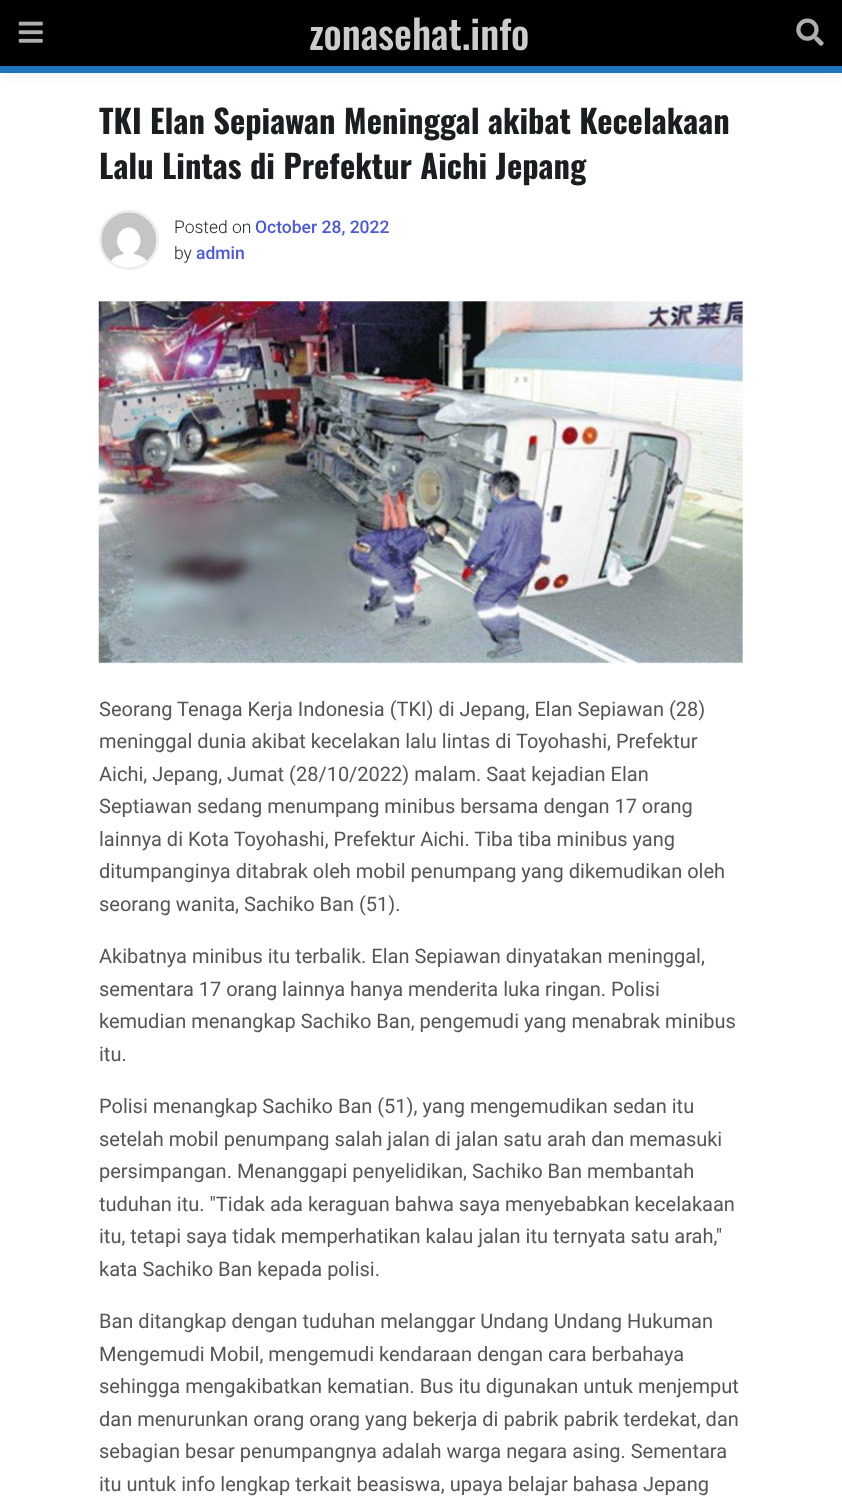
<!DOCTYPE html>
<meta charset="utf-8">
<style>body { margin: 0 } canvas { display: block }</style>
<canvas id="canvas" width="842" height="1509"></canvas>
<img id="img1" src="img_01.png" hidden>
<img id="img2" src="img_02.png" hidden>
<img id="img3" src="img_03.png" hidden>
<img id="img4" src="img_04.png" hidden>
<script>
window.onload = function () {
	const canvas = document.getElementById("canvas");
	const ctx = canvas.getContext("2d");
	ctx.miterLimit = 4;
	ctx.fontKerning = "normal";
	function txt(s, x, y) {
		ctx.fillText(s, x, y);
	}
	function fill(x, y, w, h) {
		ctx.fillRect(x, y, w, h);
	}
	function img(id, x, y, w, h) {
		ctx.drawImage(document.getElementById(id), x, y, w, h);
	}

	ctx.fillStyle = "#FFFFFF";
	fill(0, 0, 842, 1509);
	ctx.fillStyle = "#EEEEEE";
	ctx.filter = "blur(6px)";
	ctx.beginPath();
	ctx.rect(0, 3, 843, 72);
	ctx.fill();
	ctx.filter = "none";
	ctx.fillStyle = "#000000";
	fill(0, 0, 842, 66);
	ctx.fillStyle = "#1E73BE";
	fill(0, 66, 842, 7);
	img("img1", 18, 21, 25, 22);
	img("img2", 796, 18, 28, 28);
	ctx.beginPath();
	ctx.arc(129, 240, 28.5, 0, Math.PI * 2);
	ctx.strokeStyle = "#EEEEEE";
	ctx.lineWidth = 3;
	ctx.stroke();
	img("img3", 101, 212, 55, 56);
	img("img4", 98, 301, 646, 363);
	ctx.font = "500 40px Oswald";
	ctx.fillStyle = "#CCCCCC";
	txt("zonasehat.info", 309, 50);
	ctx.font = "bold 32.5px Oswald";
	ctx.fillStyle = "#1A1E21";
	txt("TKI Elan Sepiawan Meninggal akibat Kecelakaan", 99, 134);
	txt("Lalu Lintas di Prefektur Aichi Jepang", 99, 179);
	ctx.font = "300 17.5px Roboto";
	ctx.fillStyle = "#212529";
	txt("Posted on", 174, 233);
	ctx.font = "500 17.5px Roboto";
	ctx.fillStyle = "#4A58D9";
	txt("October 28, 2022", 255, 233);
	ctx.font = "300 17.5px Roboto";
	ctx.fillStyle = "#212529";
	txt("by", 174, 259);
	ctx.font = "500 17.5px Roboto";
	ctx.fillStyle = "#4A58D9";
	txt("admin", 196, 259);
	ctx.font = "20px Roboto";
	ctx.fillStyle = "#555555";
	txt("Seorang Tenaga Kerja Indonesia (TKI) di Jepang, Elan Sepiawan (28)", 99, 716);
	txt("meninggal dunia akibat kecelakan lalu lintas di Toyohashi, Prefektur", 99, 748);
	txt("Aichi, Jepang, Jumat (28/10/2022) malam. Saat kejadian Elan", 99, 781);
	txt("Septiawan sedang menumpang minibus bersama dengan 17 orang", 99, 813);
	txt("lainnya di Kota Toyohashi, Prefektur Aichi. Tiba tiba minibus yang", 99, 846);
	txt("ditumpanginya ditabrak oleh mobil penumpang yang dikemudikan oleh", 99, 878);
	txt("seorang wanita, Sachiko Ban (51).", 99, 911);
	txt("Akibatnya minibus itu terbalik. Elan Sepiawan dinyatakan meninggal,", 99, 963);
	txt("sementara 17 orang lainnya hanya menderita luka ringan. Polisi", 99, 996);
	txt("kemudian menangkap Sachiko Ban, pengemudi yang menabrak minibus", 99, 1028);
	txt("itu.", 99, 1061);
	txt("Polisi menangkap Sachiko Ban (51), yang mengemudikan sedan itu", 99, 1113);
	txt("setelah mobil penumpang salah jalan di jalan satu arah dan memasuki", 99, 1146);
	txt("persimpangan. Menanggapi penyelidikan, Sachiko Ban membantah", 99, 1178);
	txt("tuduhan itu. \"Tidak ada keraguan bahwa saya menyebabkan kecelakaan", 99, 1211);
	txt("itu, tetapi saya tidak memperhatikan kalau jalan itu ternyata satu arah,\"", 99, 1243);
	txt("kata Sachiko Ban kepada polisi.", 99, 1276);
	txt("Ban ditangkap dengan tuduhan melanggar Undang Undang Hukuman", 99, 1328);
	txt("Mengemudi Mobil, mengemudi kendaraan dengan cara berbahaya", 99, 1361);
	txt("sehingga mengakibatkan kematian. Bus itu digunakan untuk menjemput", 99, 1393);
	txt("dan menurunkan orang orang yang bekerja di pabrik pabrik terdekat, dan", 99, 1426);
	txt("sebagian besar penumpangnya adalah warga negara asing. Sementara", 99, 1458);
	txt("itu untuk info lengkap terkait beasiswa, upaya belajar bahasa Jepang", 99, 1491);
};
</script>
